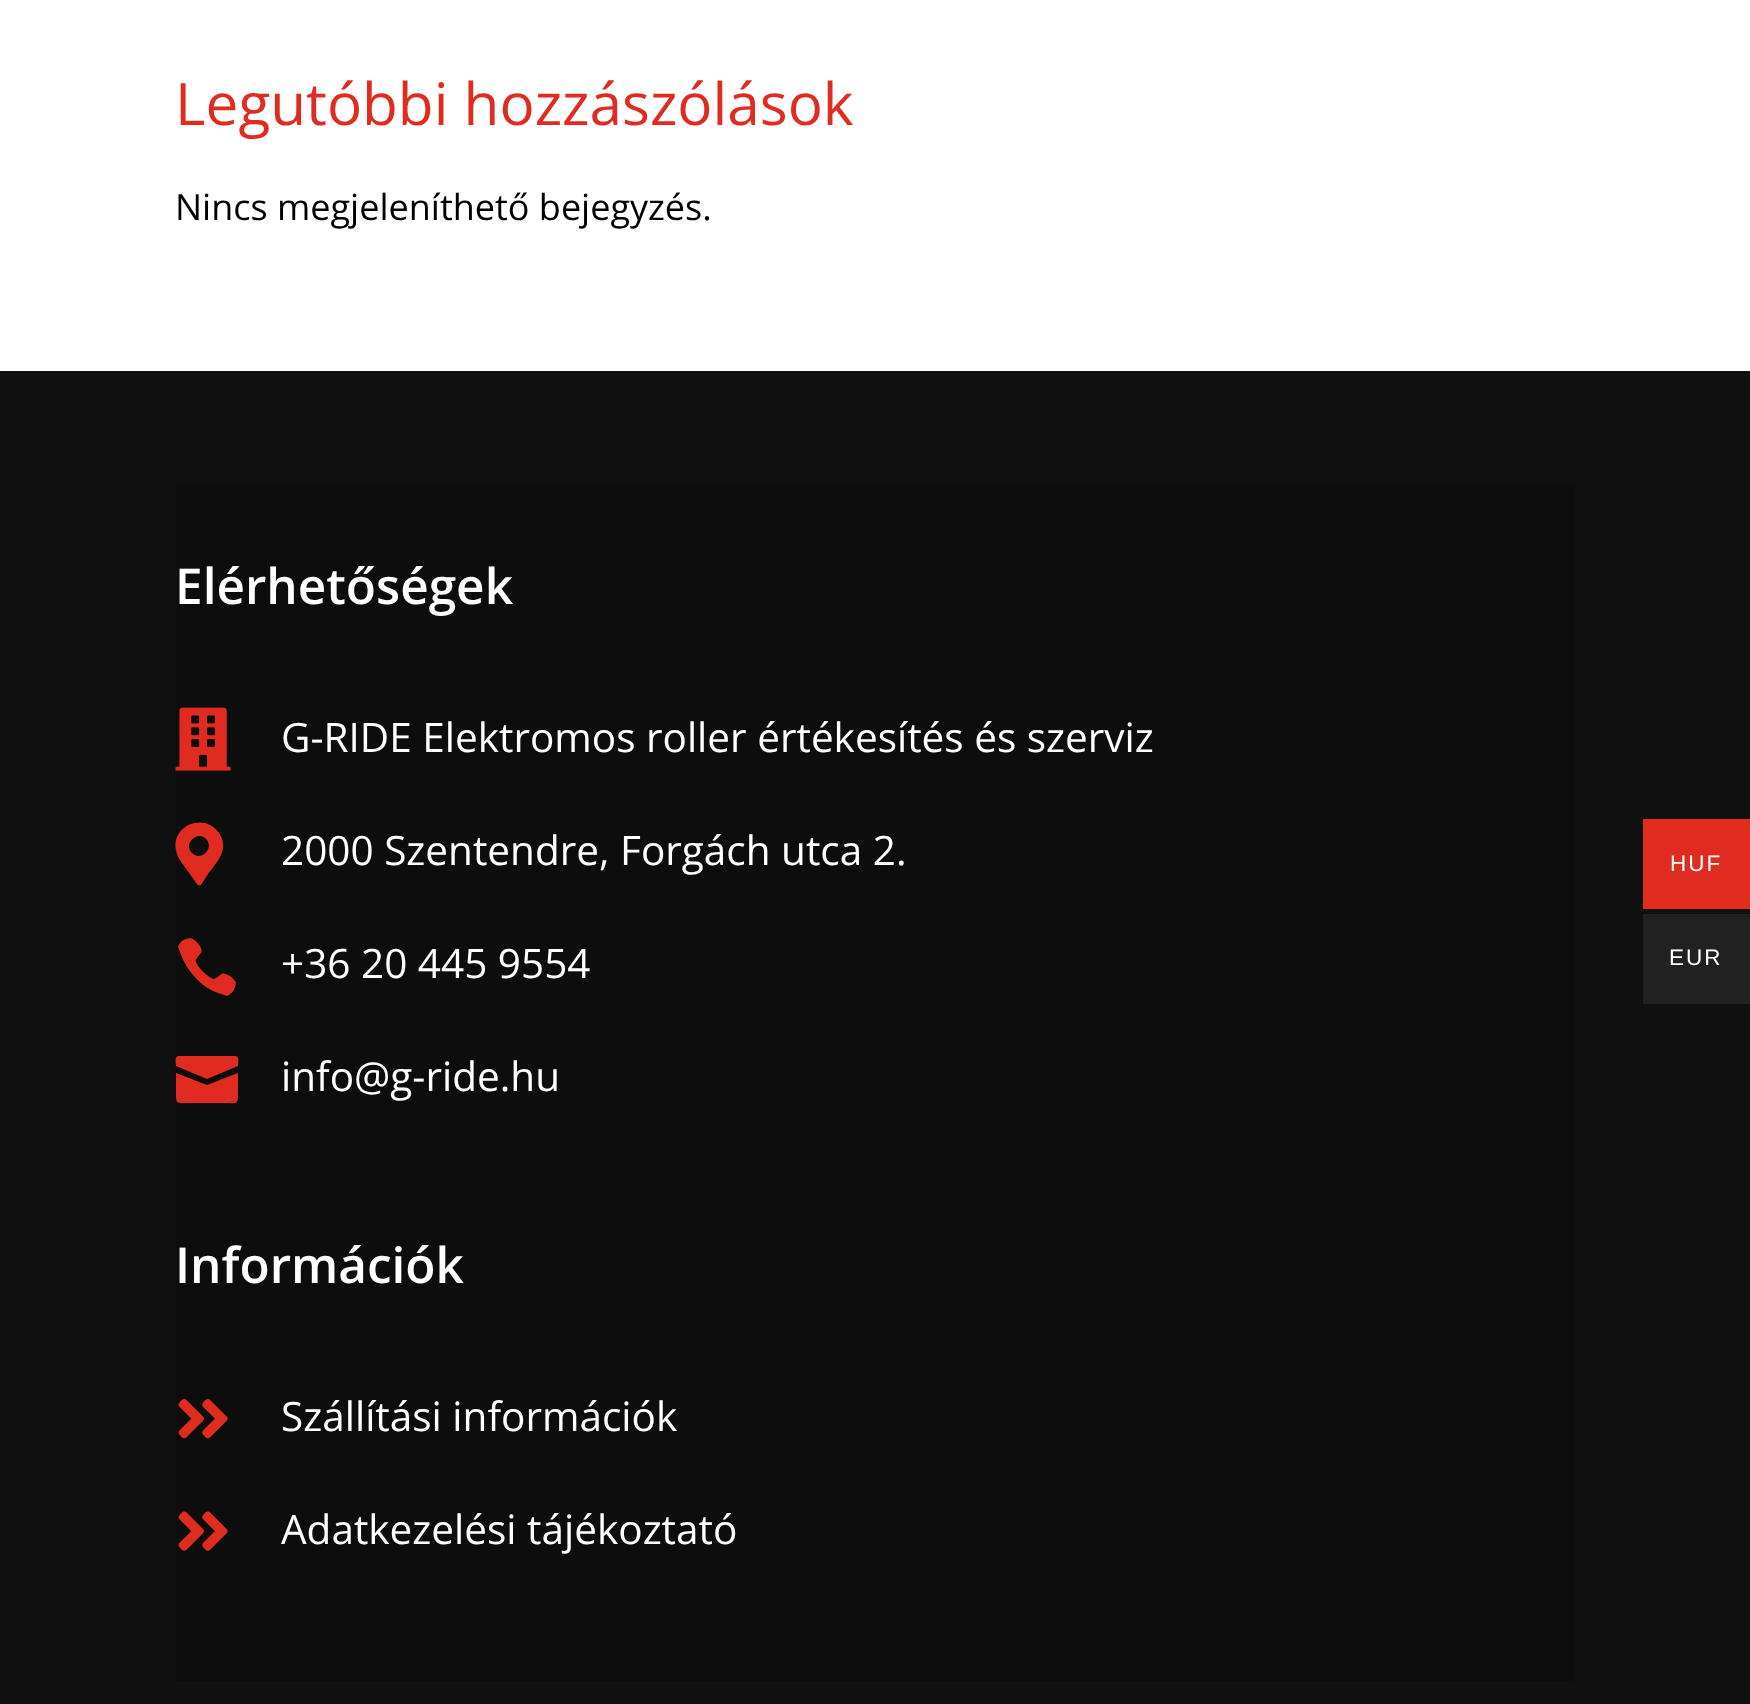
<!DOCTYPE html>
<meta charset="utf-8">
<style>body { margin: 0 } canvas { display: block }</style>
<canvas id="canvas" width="1750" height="1704"></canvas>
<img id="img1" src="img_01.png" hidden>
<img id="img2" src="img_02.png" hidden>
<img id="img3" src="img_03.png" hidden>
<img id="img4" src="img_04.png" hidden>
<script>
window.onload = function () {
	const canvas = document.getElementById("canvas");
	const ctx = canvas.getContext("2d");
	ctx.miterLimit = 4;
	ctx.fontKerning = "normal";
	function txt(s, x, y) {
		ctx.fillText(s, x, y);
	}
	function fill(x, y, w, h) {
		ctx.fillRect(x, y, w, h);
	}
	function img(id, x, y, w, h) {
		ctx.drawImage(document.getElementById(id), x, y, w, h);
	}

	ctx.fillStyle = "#FFFFFF";
	fill(0, 0, 1750, 1704);
	ctx.fillStyle = "#101010";
	fill(0, 371, 1750, 1333);
	ctx.fillStyle = "#0D0D0D";
	fill(176, 484, 1399, 1197);
	img("img1", 175, 707, 56, 64);
	ctx.fillStyle = "#E02B20";
	ctx.beginPath();
	ctx.moveTo(197, 884);
	ctx.lineTo(187, 870);
	ctx.bezierCurveTo(183, 864, 177, 858, 176, 850);
	ctx.bezierCurveTo(171, 825, 205, 812, 219, 833);
	ctx.bezierCurveTo(230, 849, 217, 862, 208, 874);
	ctx.lineTo(201, 885);
	ctx.bezierCurveTo(199, 886, 198, 885, 197, 884);
	ctx.closePath();
	ctx.moveTo(192, 853);
	ctx.bezierCurveTo(201, 862, 215, 848, 206, 839);
	ctx.bezierCurveTo(197, 830, 183, 844, 192, 853);
	ctx.closePath();
	ctx.fill();
	img("img2", 178, 938, 58, 58);
	ctx.beginPath();
	ctx.moveTo(235, 1056);
	ctx.lineTo(179, 1056);
	ctx.bezierCurveTo(174, 1056, 176, 1063, 176, 1066);
	ctx.lineTo(207, 1079);
	ctx.lineTo(238, 1066);
	ctx.bezierCurveTo(238, 1063, 240, 1056, 235, 1056);
	ctx.closePath();
	ctx.moveTo(176, 1073);
	ctx.lineTo(176, 1095);
	ctx.bezierCurveTo(176, 1105, 178, 1103, 189, 1103);
	ctx.lineTo(225, 1103);
	ctx.bezierCurveTo(236, 1103, 238, 1105, 238, 1095);
	ctx.lineTo(238, 1073);
	ctx.lineTo(207, 1085);
	ctx.closePath();
	ctx.fill();
	img("img3", 178, 1399, 50, 40);
	img("img4", 178, 1511, 50, 40);
	fill(1643, 819, 107, 90);
	ctx.fillStyle = "#212121";
	fill(1643, 914, 107, 90);
	ctx.font = "58.5px Open Sans";
	ctx.fillStyle = "#E02B20";
	txt("Legutóbbi hozzászólások", 175, 125);
	ctx.font = "36px Open Sans";
	ctx.fillStyle = "#000000";
	txt("Nincs megjeleníthető bejegyzés.", 175, 220);
	ctx.font = "600 49.5px Open Sans";
	ctx.fillStyle = "#FFFFFF";
	txt("Elérhetőségek", 175, 604);
	ctx.font = "40.5px Open Sans";
	txt("G-RIDE Elektromos roller értékesítés és szerviz", 281, 752);
	txt("2000 Szentendre, Forgách utca 2.", 281, 865);
	txt("+36 20 445 9554", 281, 978);
	txt("info@g-ride.hu", 281, 1091);
	ctx.font = "600 49.5px Open Sans";
	txt("Információk", 175, 1283);
	ctx.font = "40.5px Open Sans";
	txt("Szállítási információk", 281, 1431);
	txt("Adatkezelési tájékoztató", 281, 1544);
	ctx.letterSpacing = "2px";
	ctx.font = "22.5px Liberation Sans";
	txt("HUF", 1670, 871);
	txt("EUR", 1669, 965);
};
</script>
